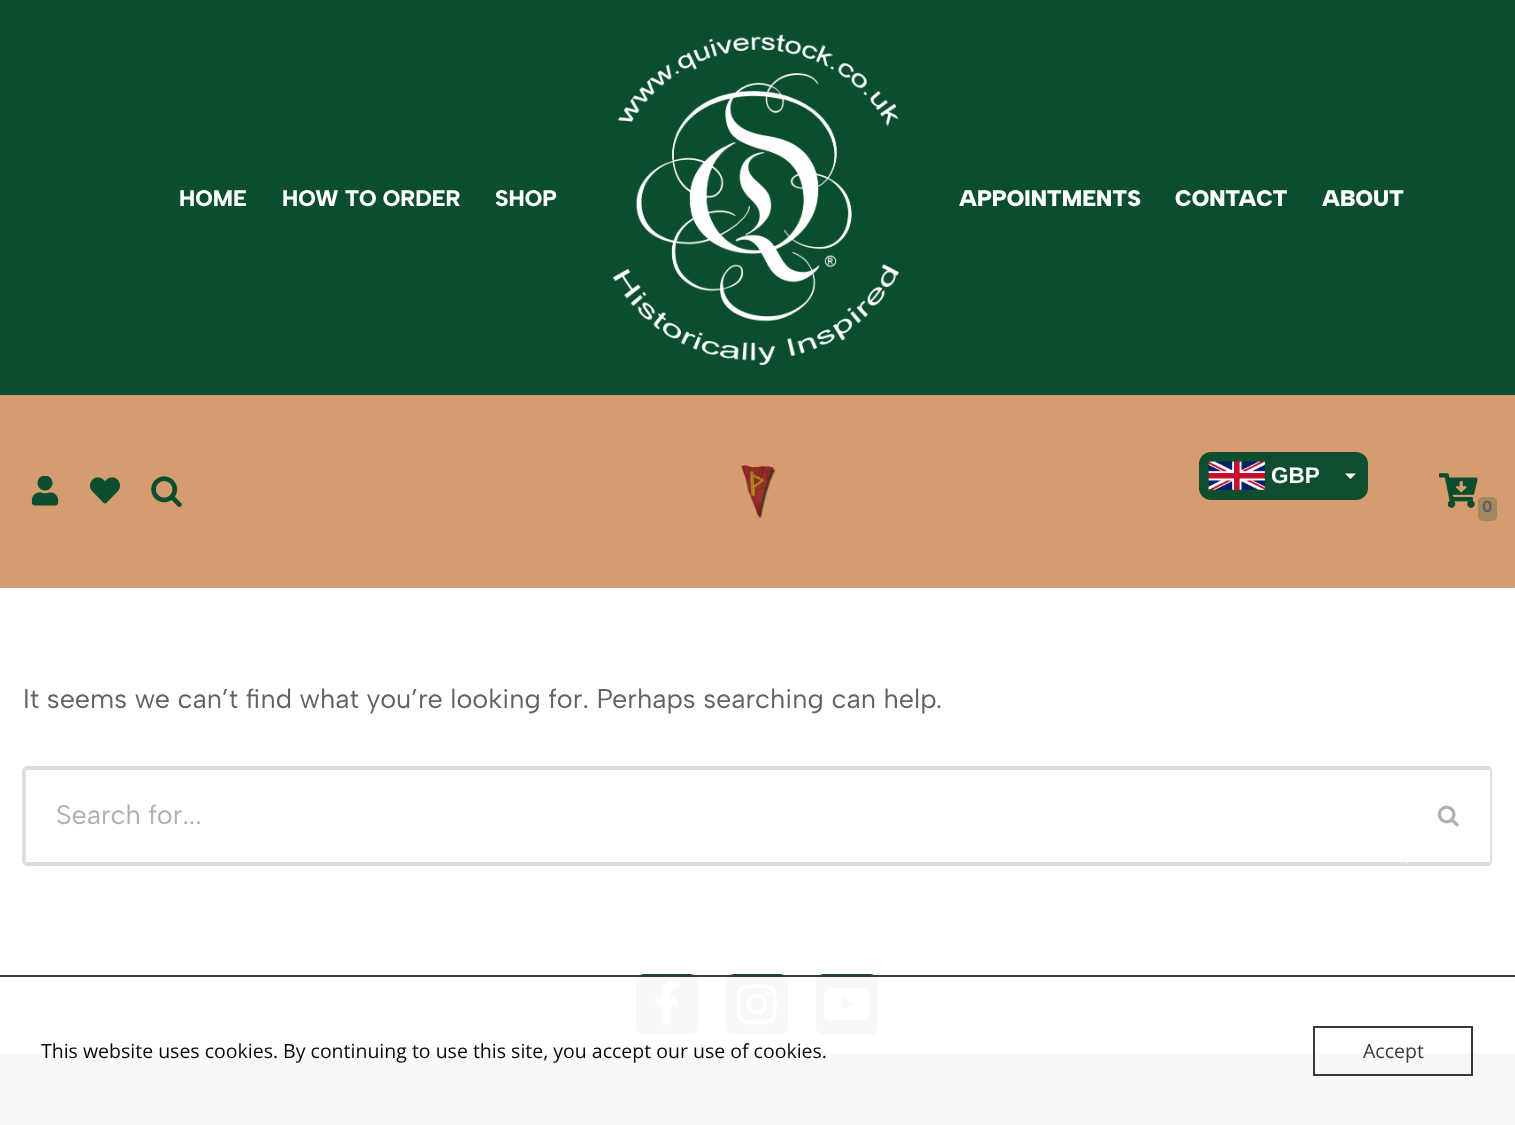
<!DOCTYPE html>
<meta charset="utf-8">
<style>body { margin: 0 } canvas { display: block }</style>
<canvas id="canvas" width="1515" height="1125"></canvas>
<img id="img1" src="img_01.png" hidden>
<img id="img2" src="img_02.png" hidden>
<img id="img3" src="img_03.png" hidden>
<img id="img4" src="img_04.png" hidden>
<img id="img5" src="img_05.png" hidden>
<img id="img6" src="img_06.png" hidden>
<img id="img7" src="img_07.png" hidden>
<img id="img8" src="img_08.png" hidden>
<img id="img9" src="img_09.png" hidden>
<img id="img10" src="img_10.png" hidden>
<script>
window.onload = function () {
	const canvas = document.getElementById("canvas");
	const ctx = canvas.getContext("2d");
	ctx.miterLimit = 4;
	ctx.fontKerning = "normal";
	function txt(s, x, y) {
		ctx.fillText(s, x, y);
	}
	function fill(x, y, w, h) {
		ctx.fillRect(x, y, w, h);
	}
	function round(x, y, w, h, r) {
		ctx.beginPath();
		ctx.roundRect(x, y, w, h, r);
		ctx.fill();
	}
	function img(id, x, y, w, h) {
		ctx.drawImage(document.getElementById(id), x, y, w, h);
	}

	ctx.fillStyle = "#FFFFFF";
	fill(0, 0, 1515, 1125);
	ctx.fillStyle = "rgba(0, 0, 0, 0.1)";
	ctx.filter = "blur(2px)";
	ctx.beginPath();
	ctx.rect(0, -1, 1515, 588);
	ctx.fill();
	ctx.filter = "none";
	ctx.fillStyle = "#0A4E2E";
	fill(0, 0, 1515, 395);
	img("img1", 612, 34, 288, 331);
	ctx.fillStyle = "#D59C70";
	fill(0, 395, 1515, 193);
	img("img2", 31, 476, 28, 30);
	img("img3", 90, 477, 30, 27);
	img("img4", 151, 476, 31, 31);
	img("img5", 741, 465, 35, 53);
	ctx.fillStyle = "#0E4E2E";
	round(1199, 452, 169, 48, 12);
	img("img6", 1208, 461, 57, 29);
	ctx.fillStyle = "#FFFFFF";
	ctx.beginPath();
	ctx.moveTo(1345, 473.5);
	ctx.lineTo(1356, 473.5);
	ctx.lineTo(1350.5, 479);
	ctx.closePath();
	ctx.fill();
	img("img7", 1439, 473, 39, 35);
	ctx.fillStyle = "#A0885F";
	round(1478, 497, 19, 24, 5);
	ctx.fillStyle = "#DDDDDD";
	ctx.beginPath();
	ctx.moveTo(27, 766);
	ctx.lineTo(1407, 766);
	ctx.lineTo(1407, 866);
	ctx.lineTo(27, 866);
	ctx.bezierCurveTo(25, 866, 22, 863, 22, 861);
	ctx.lineTo(22, 771);
	ctx.bezierCurveTo(22, 769, 25, 766, 27, 766);
	ctx.closePath();
	ctx.moveTo(27, 770);
	ctx.lineTo(1407, 770);
	ctx.lineTo(1407, 862);
	ctx.lineTo(27, 862);
	ctx.bezierCurveTo(26, 862, 26, 862, 26, 861);
	ctx.lineTo(26, 771);
	ctx.bezierCurveTo(26, 770, 26, 770, 27, 770);
	ctx.closePath();
	ctx.fill("evenodd");
	ctx.beginPath();
	ctx.moveTo(1407, 766);
	ctx.lineTo(1488, 766);
	ctx.bezierCurveTo(1490, 766, 1492, 769, 1492, 771);
	ctx.lineTo(1492, 861);
	ctx.bezierCurveTo(1492, 863, 1490, 866, 1488, 866);
	ctx.lineTo(1407, 866);
	ctx.closePath();
	ctx.moveTo(1407, 770);
	ctx.lineTo(1488, 770);
	ctx.bezierCurveTo(1489, 770, 1490, 770, 1490, 771);
	ctx.lineTo(1490, 861);
	ctx.bezierCurveTo(1490, 862, 1489, 862, 1488, 862);
	ctx.lineTo(1407, 862);
	ctx.closePath();
	ctx.fill("evenodd");
	img("img8", 1437, 805, 22, 22);
	ctx.fillStyle = "#FFFFFF";
	fill(1407, 862, 1, 1);
	ctx.fillStyle = "#0A4E2E";
	round(636, 974, 62, 61, 8);
	img("img9", 655, 981, 24, 44);
	round(726, 974, 62, 61, 8);
	img("img10", 736, 984, 41, 41);
	round(816, 974, 62, 61, 8);
	ctx.save();
	ctx.beginPath();
	ctx.rect(824, 981, 46, 47);
	ctx.clip();
	ctx.fillStyle = "#FFFFFF";
	ctx.beginPath();
	ctx.moveTo(842, 1010);
	ctx.lineTo(855, 1004);
	ctx.lineTo(842, 997);
	ctx.closePath();
	ctx.moveTo(847, 988);
	ctx.lineTo(861, 988);
	ctx.bezierCurveTo(871, 989, 870, 995, 870, 1004);
	ctx.bezierCurveTo(870, 1016, 870, 1020, 860, 1020);
	ctx.lineTo(834, 1020);
	ctx.bezierCurveTo(822, 1020, 824, 1014, 824, 1004);
	ctx.bezierCurveTo(824, 992, 823, 989, 834, 988);
	ctx.closePath();
	ctx.fill();
	ctx.restore();
	fill(0, 1053, 1515, 72);
	ctx.fillStyle = "rgba(255, 255, 255, 0.97)";
	fill(0, 975, 1515, 150);
	ctx.fillStyle = "rgba(51, 51, 51, 0.97)";
	fill(0, 975, 1515, 2);
	ctx.strokeStyle = "rgba(51, 51, 51, 0.97)";
	ctx.lineWidth = 2;
	ctx.strokeRect(1314, 1027, 158, 48);
	ctx.font = "800 22.5px Albert Sans";
	ctx.fillStyle = "#FFFFFF";
	txt("HOME", 179, 206);
	txt("HOW TO ORDER", 282, 206);
	txt("SHOP", 495, 206);
	ctx.font = "900 22.5px Albert Sans";
	txt("APPOINTMENTS", 959, 206);
	txt("CONTACT", 1175, 206);
	txt("ABOUT", 1322, 206);
	ctx.font = "bold 22.5px Liberation Sans";
	txt("GBP", 1271, 483);
	ctx.font = "800 16px Albert Sans";
	ctx.fillStyle = "#626262";
	txt("0", 1482, 512);
	ctx.font = "27px Albert Sans";
	txt("It seems we can’t find what you’re looking for. Perhaps searching can help.", 23, 708);
	ctx.fillStyle = "#B1B1B1";
	txt("Search for...", 56, 824);
	ctx.font = "19.5px Open Sans";
	ctx.fillStyle = "#080808";
	txt("This website uses cookies. By continuing to use this site, you accept our use of cookies.", 41, 1058);
	ctx.fillStyle = "#393939";
	txt("Accept", 1363, 1058);
};
</script>
